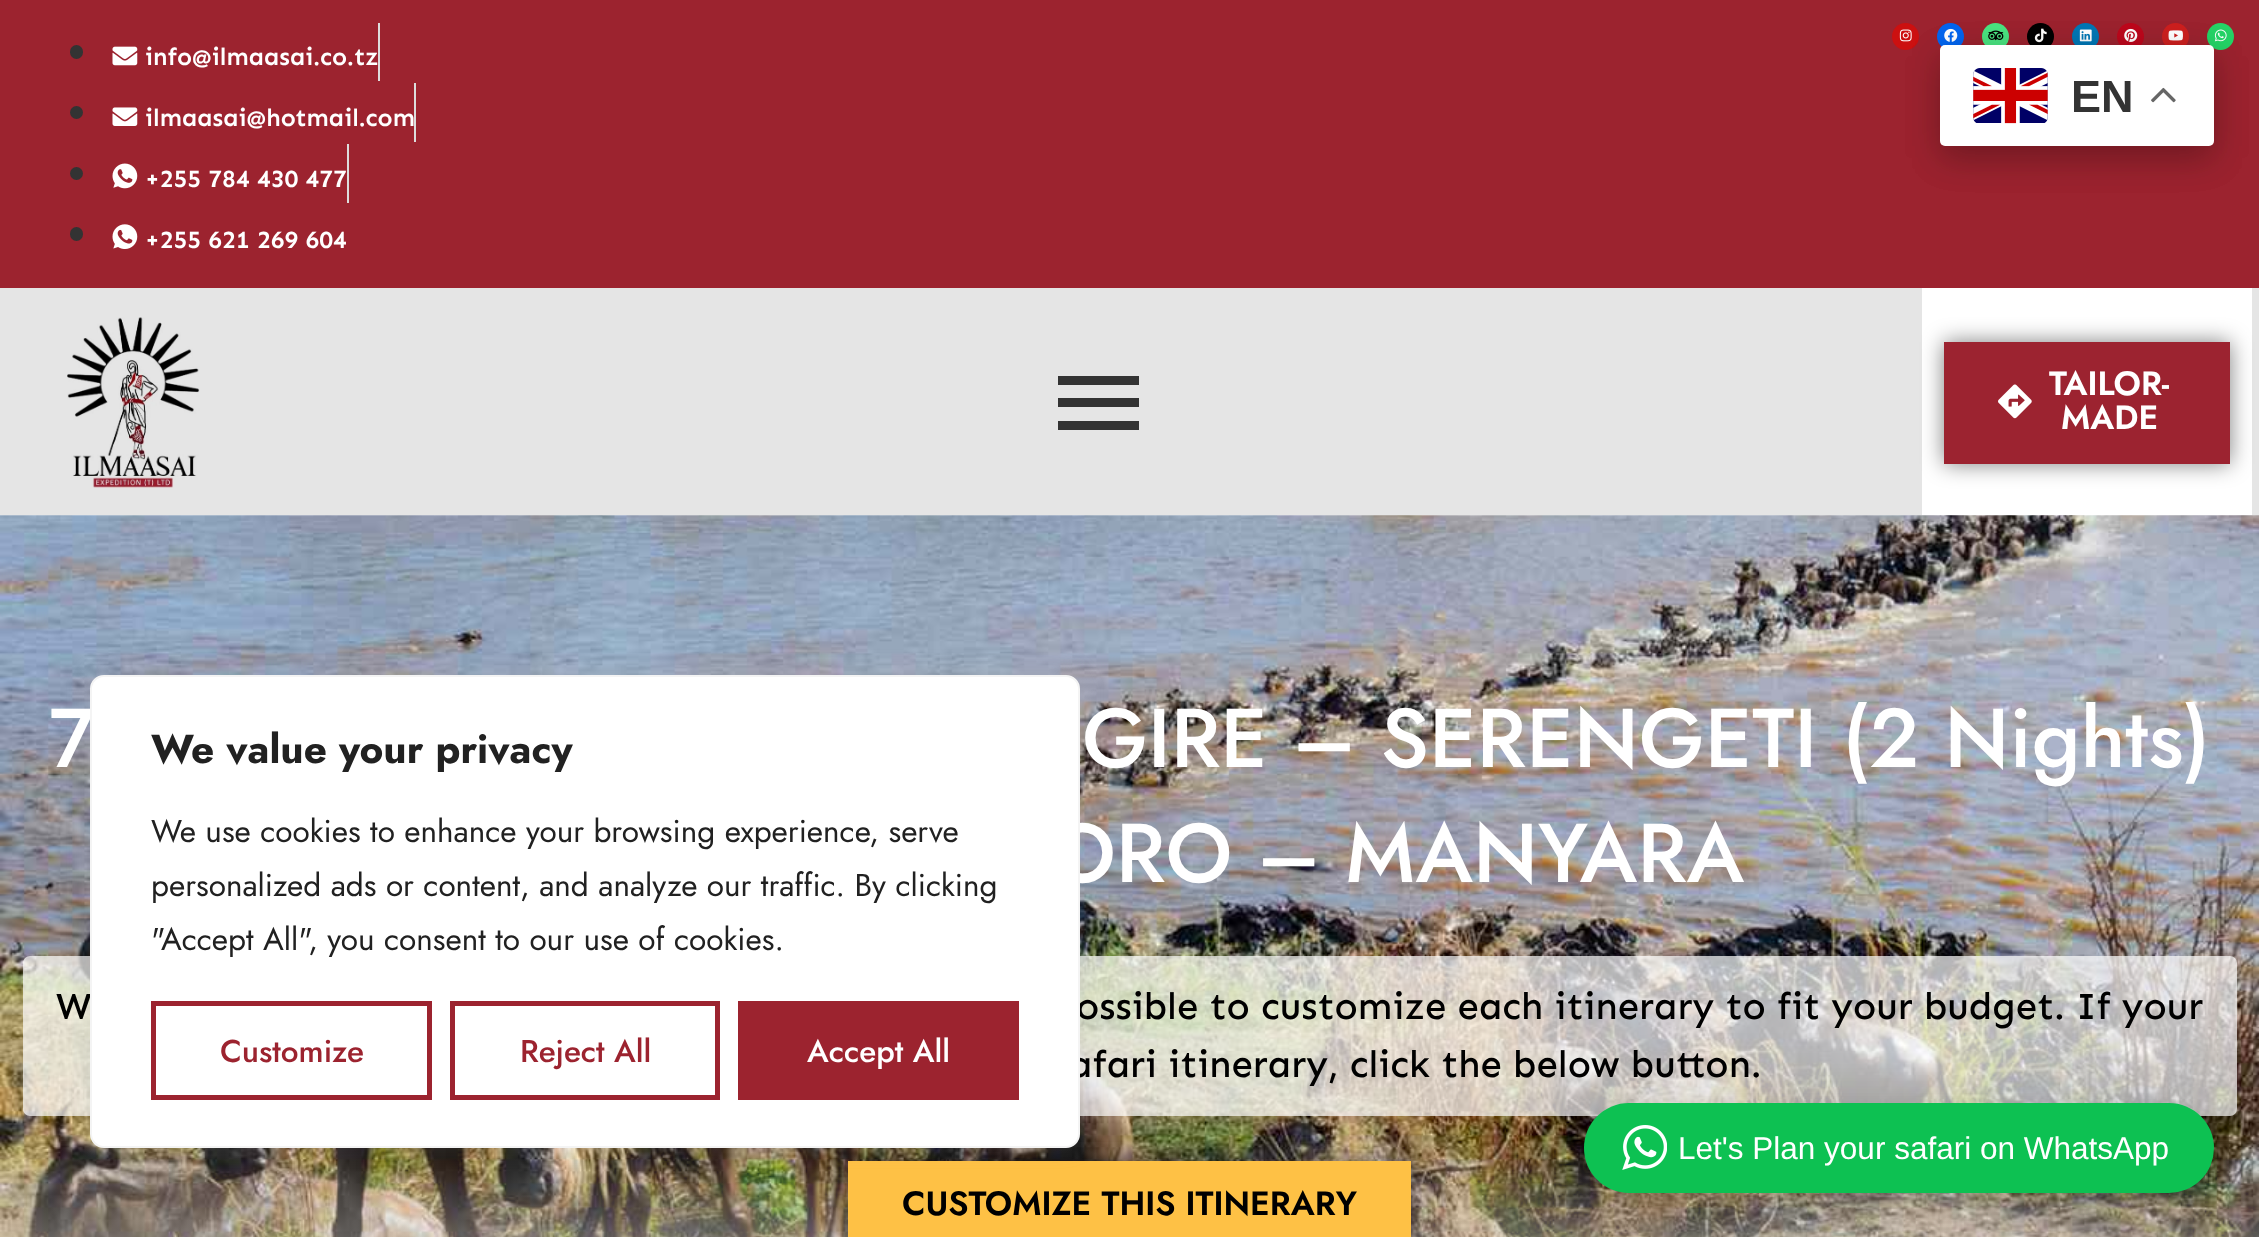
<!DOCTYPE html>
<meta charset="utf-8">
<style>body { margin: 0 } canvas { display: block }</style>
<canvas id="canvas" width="2259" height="1237"></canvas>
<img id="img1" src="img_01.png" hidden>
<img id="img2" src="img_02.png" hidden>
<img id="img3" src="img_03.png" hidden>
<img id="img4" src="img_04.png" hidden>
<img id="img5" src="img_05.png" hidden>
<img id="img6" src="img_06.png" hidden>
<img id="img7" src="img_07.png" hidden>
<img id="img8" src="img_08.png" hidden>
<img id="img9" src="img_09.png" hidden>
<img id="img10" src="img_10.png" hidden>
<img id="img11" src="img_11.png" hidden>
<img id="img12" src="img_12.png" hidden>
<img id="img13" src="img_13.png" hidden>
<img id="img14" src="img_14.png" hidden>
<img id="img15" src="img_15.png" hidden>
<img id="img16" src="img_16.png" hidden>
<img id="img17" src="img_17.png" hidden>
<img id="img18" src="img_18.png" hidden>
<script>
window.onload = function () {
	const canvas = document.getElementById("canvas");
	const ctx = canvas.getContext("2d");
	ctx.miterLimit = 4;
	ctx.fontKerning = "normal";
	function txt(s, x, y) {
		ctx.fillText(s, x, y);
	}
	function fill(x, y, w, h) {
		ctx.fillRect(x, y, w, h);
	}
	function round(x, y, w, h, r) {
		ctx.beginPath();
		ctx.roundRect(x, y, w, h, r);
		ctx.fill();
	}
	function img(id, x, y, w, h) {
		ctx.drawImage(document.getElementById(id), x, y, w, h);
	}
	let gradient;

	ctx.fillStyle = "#FFFFFF";
	fill(0, 0, 2259, 1237);
	ctx.fillStyle = "#9C232F";
	fill(0, 0, 2259, 288);
	ctx.fillStyle = "#CC1010";
	ctx.beginPath();
	ctx.arc(1905.5, 36.5, 13.5, 0, Math.PI * 2);
	ctx.fill();
	img("img1", 1899, 29, 13, 13);
	ctx.fillStyle = "#0465EF";
	ctx.beginPath();
	ctx.arc(1950.5, 36.5, 13.5, 0, Math.PI * 2);
	ctx.fill();
	img("img2", 1944, 28, 14, 14);
	ctx.fillStyle = "#4AE481";
	ctx.beginPath();
	ctx.arc(1995.5, 36.5, 13.5, 0, Math.PI * 2);
	ctx.fill();
	img("img3", 1988, 30, 16, 11);
	ctx.fillStyle = "#000000";
	ctx.beginPath();
	ctx.arc(2040.5, 36.5, 13.5, 0, Math.PI * 2);
	ctx.fill();
	img("img4", 2034, 28, 13, 15);
	ctx.fillStyle = "#0077B5";
	ctx.beginPath();
	ctx.arc(2085.5, 36.5, 13.5, 0, Math.PI * 2);
	ctx.fill();
	img("img5", 2079, 29, 13, 13);
	ctx.fillStyle = "#BD081C";
	ctx.beginPath();
	ctx.arc(2130.5, 36.5, 13.5, 0, Math.PI * 2);
	ctx.fill();
	img("img6", 2124, 28, 14, 14);
	ctx.fillStyle = "#CD201F";
	ctx.beginPath();
	ctx.arc(2175.5, 36.5, 13.5, 0, Math.PI * 2);
	ctx.fill();
	img("img7", 2168, 30, 15, 11);
	ctx.fillStyle = "#25D366";
	ctx.beginPath();
	ctx.arc(2220.5, 36.5, 13.5, 0, Math.PI * 2);
	ctx.fill();
	img("img8", 2214, 29, 13, 13);
	ctx.fillStyle = "rgba(0, 0, 0, 0.15)";
	ctx.filter = "blur(17px)";
	ctx.beginPath();
	ctx.roundRect(1940, 56, 274, 102, 5);
	ctx.fill();
	ctx.filter = "none";
	ctx.fillStyle = "#333333";
	round(70, 45, 13, 14, 6.5);
	img("img9", 112, 46, 26, 20);
	ctx.fillStyle = "#DDDDDD";
	fill(378, 23, 2, 58);
	ctx.fillStyle = "#333333";
	ctx.beginPath();
	ctx.arc(76.5, 112.5, 6.5, 0, Math.PI * 2);
	ctx.fill();
	img("img10", 112, 107, 26, 19);
	ctx.fillStyle = "#DDDDDD";
	fill(414, 83, 2, 59);
	ctx.fillStyle = "#333333";
	ctx.beginPath();
	ctx.arc(76.5, 173.5, 6.5, 0, Math.PI * 2);
	ctx.fill();
	img("img11", 112, 163, 26, 26);
	ctx.fillStyle = "#DDDDDD";
	fill(347, 144, 2, 59);
	ctx.fillStyle = "#333333";
	round(70, 227, 13, 14, 6.5);
	img("img12", 112, 224, 26, 25);
	ctx.fillStyle = "#E5E5E5";
	fill(0, 288, 2259, 227);
	img("img13", 67, 317, 133, 171);
	ctx.fillStyle = "#333333";
	fill(1058, 376, 81, 9);
	fill(1058, 398, 81, 9);
	fill(1058, 421, 81, 9);
	ctx.fillStyle = "#FFFFFF";
	fill(1922, 288, 330, 227);
	ctx.fillStyle = "rgba(0, 0, 0, 0.5)";
	ctx.filter = "blur(11px)";
	ctx.beginPath();
	ctx.rect(1944, 342, 286, 122);
	ctx.fill();
	ctx.filter = "none";
	ctx.fillStyle = "#9C2330";
	fill(1944, 342, 286, 122);
	img("img14", 1998, 384, 34, 35);
	ctx.fillStyle = "rgba(0, 0, 0, 0.15)";
	ctx.filter = "blur(17px)";
	ctx.beginPath();
	ctx.roundRect(1940, 56, 274, 102, 5);
	ctx.fill();
	ctx.filter = "none";
	ctx.fillStyle = "#FFFFFF";
	round(1940, 45, 274, 101, 5);
	img("img15", 1973, 68, 75, 56);
	img("img16", 2151, 87, 25, 16);
	img("img17", 0, 515, 2259, 722);
	ctx.fillStyle = "rgba(255, 255, 255, 0.7)";
	round(23, 956, 2214, 160, 7);
	gradient = ctx.createLinearGradient(1130, 515, 1130, 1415);
	gradient.addColorStop(0.69, "rgba(237, 236, 235, 0)");
	gradient.addColorStop(1, "#EDECEB");
	ctx.fillStyle = gradient;
	fill(0, 1142, 2259, 95);
	ctx.fillStyle = "rgba(0, 0, 0, 0.5)";
	ctx.filter = "blur(11px)";
	ctx.beginPath();
	ctx.rect(848, 1161, 563, 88);
	ctx.fill();
	ctx.filter = "none";
	ctx.fillStyle = "#FEC145";
	fill(848, 1161, 563, 76);
	ctx.fillStyle = "rgba(172, 171, 171, 0.3)";
	ctx.filter = "blur(11px)";
	ctx.beginPath();
	ctx.roundRect(90, 673, 990, 472, 14);
	ctx.fill();
	ctx.filter = "none";
	ctx.fillStyle = "rgba(0, 0, 0, 0.16)";
	ctx.filter = "blur(36px)";
	ctx.beginPath();
	ctx.roundRect(1584, 1107, 630, 90, 45);
	ctx.fill();
	ctx.filter = "none";
	ctx.fillStyle = "rgba(0, 0, 0, 0.06)";
	ctx.filter = "blur(7px)";
	ctx.beginPath();
	ctx.roundRect(1584, 1105, 630, 90, 45);
	ctx.fill();
	ctx.filter = "none";
	ctx.fillStyle = "#0DC152";
	round(1584, 1103, 630, 90, 45);
	img("img18", 1622, 1125, 45, 45);
	ctx.font = "600 24.75px Sen";
	ctx.fillStyle = "#FFFFFF";
	txt("info@ilmaasai.co.tz", 145, 65);
	txt("ilmaasai@hotmail.com", 145, 126);
	txt("+255 784 430 477", 145, 187);
	txt("+255 621 269 604", 145, 248);
	ctx.font = "600 33.75px Jost";
	txt("TAILOR-", 2049, 395);
	txt("MADE", 2061, 429);
	ctx.font = "bold 45px Liberation Sans";
	ctx.fillStyle = "#333333";
	txt("EN", 2071, 112);
	ctx.font = "500 83.25px Jost";
	ctx.fillStyle = "#FFFFFF";
	txt("7", 49, 767);
	txt("GIRE – SERENGETI (2 Nights)", 1082, 767);
	txt("ORO – MANYARA", 1049, 882);
	ctx.font = "500 38.25px Sen";
	ctx.fillStyle = "#000000";
	txt("W", 56, 1019);
	txt("ossible to customize each itinerary to fit your budget. If your", 1076, 1019);
	txt("afari itinerary, click the below button.", 1069, 1077);
	ctx.font = "600 33.75px Jost";
	txt("CUSTOMIZE THIS ITINERARY", 902, 1215);
	ctx.fillStyle = "#FFFFFF";
	ctx.beginPath();
	ctx.roundRect(91, 676, 988, 471, 13);
	ctx.fill();
	ctx.strokeStyle = "#F4F4F4";
	ctx.lineWidth = 2;
	ctx.stroke();
	ctx.font = "bold 40.5px Jost";
	ctx.fillStyle = "#212121";
	txt("We value your privacy", 151, 763);
	ctx.font = "31.5px Jost";
	txt("We use cookies to enhance your browsing experience, serve", 151, 842);
	txt("personalized ads or content, and analyze our traffic. By clicking", 151, 896);
	txt("\"Accept All\", you consent to our use of cookies.", 151, 950);
	ctx.strokeStyle = "#9C232F";
	ctx.lineWidth = 5;
	ctx.strokeRect(153.5, 1003.5, 276, 94);
	ctx.font = "500 31.5px Jost";
	ctx.fillStyle = "#9C232F";
	txt("Customize", 220, 1062);
	ctx.strokeRect(452.5, 1003.5, 265, 94);
	txt("Reject All", 520, 1062);
	fill(738, 1001, 281, 99);
	ctx.fillStyle = "#FFFFFF";
	txt("Accept All", 807, 1062);
	ctx.font = "31.5px Liberation Sans";
	txt("Let's Plan your safari on WhatsApp", 1678, 1159);
};
</script>
